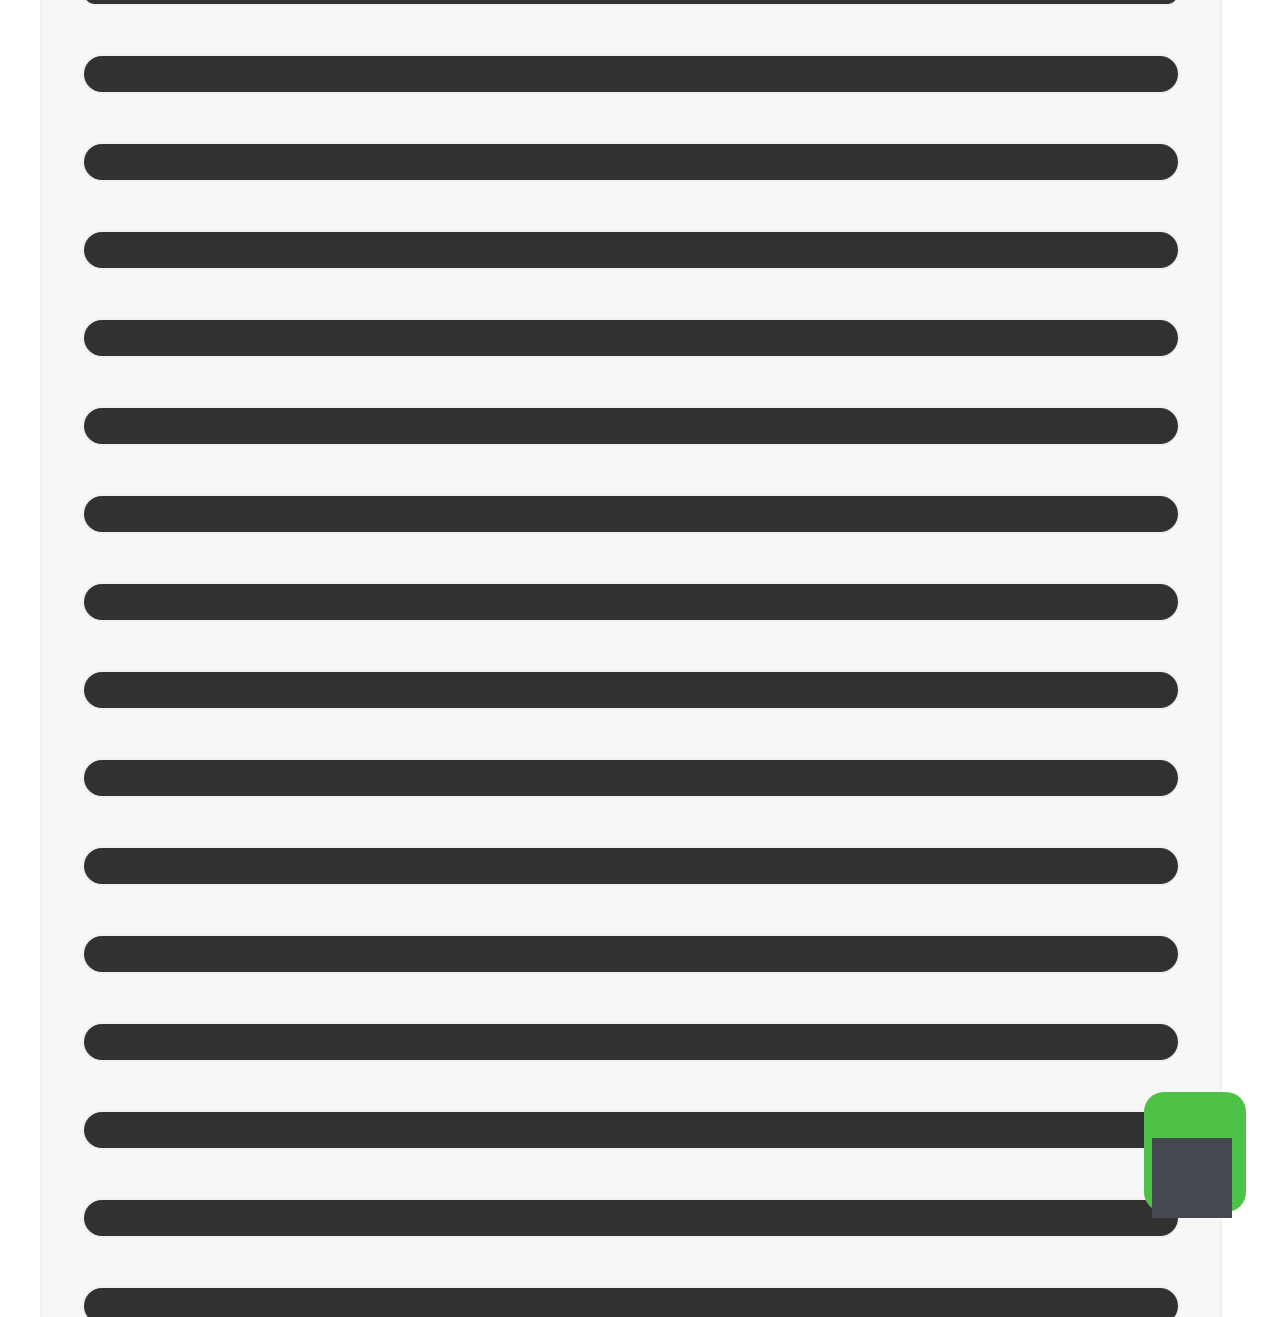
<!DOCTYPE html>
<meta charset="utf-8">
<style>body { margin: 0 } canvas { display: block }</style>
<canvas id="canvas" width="1261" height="1317"></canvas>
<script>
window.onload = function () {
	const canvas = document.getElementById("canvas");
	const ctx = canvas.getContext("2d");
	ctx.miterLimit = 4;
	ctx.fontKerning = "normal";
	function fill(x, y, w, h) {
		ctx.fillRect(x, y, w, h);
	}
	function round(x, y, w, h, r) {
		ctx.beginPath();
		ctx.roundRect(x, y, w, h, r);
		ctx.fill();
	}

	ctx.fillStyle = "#FFFFFF";
	fill(0, 0, 1261, 1317);
	ctx.fillStyle = "#F7F7F7";
	ctx.beginPath();
	ctx.rect(41, -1, 1180, 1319);
	ctx.fill();
	ctx.strokeStyle = "#F1F1F1";
	ctx.lineWidth = 2;
	ctx.stroke();
	ctx.beginPath();
	ctx.roundRect(83, -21, 1096, 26, 19);
	ctx.stroke();
	ctx.fillStyle = "#313131";
	round(84, -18, 1094, 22, 18);
	ctx.beginPath();
	ctx.roundRect(83, 55, 1096, 38, 19);
	ctx.stroke();
	round(84, 56, 1094, 36, 18);
	ctx.beginPath();
	ctx.roundRect(83, 143, 1096, 38, 19);
	ctx.stroke();
	round(84, 144, 1094, 36, 18);
	ctx.beginPath();
	ctx.roundRect(83, 231, 1096, 38, 19);
	ctx.stroke();
	round(84, 232, 1094, 36, 18);
	ctx.beginPath();
	ctx.roundRect(83, 319, 1096, 38, 19);
	ctx.stroke();
	round(84, 320, 1094, 36, 18);
	ctx.beginPath();
	ctx.roundRect(83, 407, 1096, 38, 19);
	ctx.stroke();
	round(84, 408, 1094, 36, 18);
	ctx.beginPath();
	ctx.roundRect(83, 495, 1096, 38, 19);
	ctx.stroke();
	round(84, 496, 1094, 36, 18);
	ctx.beginPath();
	ctx.roundRect(83, 583, 1096, 38, 19);
	ctx.stroke();
	round(84, 584, 1094, 36, 18);
	ctx.beginPath();
	ctx.roundRect(83, 671, 1096, 38, 19);
	ctx.stroke();
	round(84, 672, 1094, 36, 18);
	ctx.beginPath();
	ctx.roundRect(83, 759, 1096, 38, 19);
	ctx.stroke();
	round(84, 760, 1094, 36, 18);
	ctx.beginPath();
	ctx.roundRect(83, 847, 1096, 38, 19);
	ctx.stroke();
	round(84, 848, 1094, 36, 18);
	ctx.beginPath();
	ctx.roundRect(83, 935, 1096, 38, 19);
	ctx.stroke();
	round(84, 936, 1094, 36, 18);
	ctx.beginPath();
	ctx.roundRect(83, 1023, 1096, 38, 19);
	ctx.stroke();
	round(84, 1024, 1094, 36, 18);
	ctx.beginPath();
	ctx.roundRect(83, 1111, 1096, 38, 19);
	ctx.stroke();
	round(84, 1112, 1094, 36, 18);
	ctx.beginPath();
	ctx.roundRect(83, 1199, 1096, 38, 19);
	ctx.stroke();
	round(84, 1200, 1094, 36, 18);
	ctx.beginPath();
	ctx.roundRect(83, 1287, 1096, 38, 19);
	ctx.stroke();
	round(84, 1288, 1094, 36, 18);
	ctx.fillStyle = "#4DC247";
	round(1144, 1092, 102, 120, 20);
	ctx.fillStyle = "#43494E";
	fill(1152, 1138, 80, 80);
};
</script>
